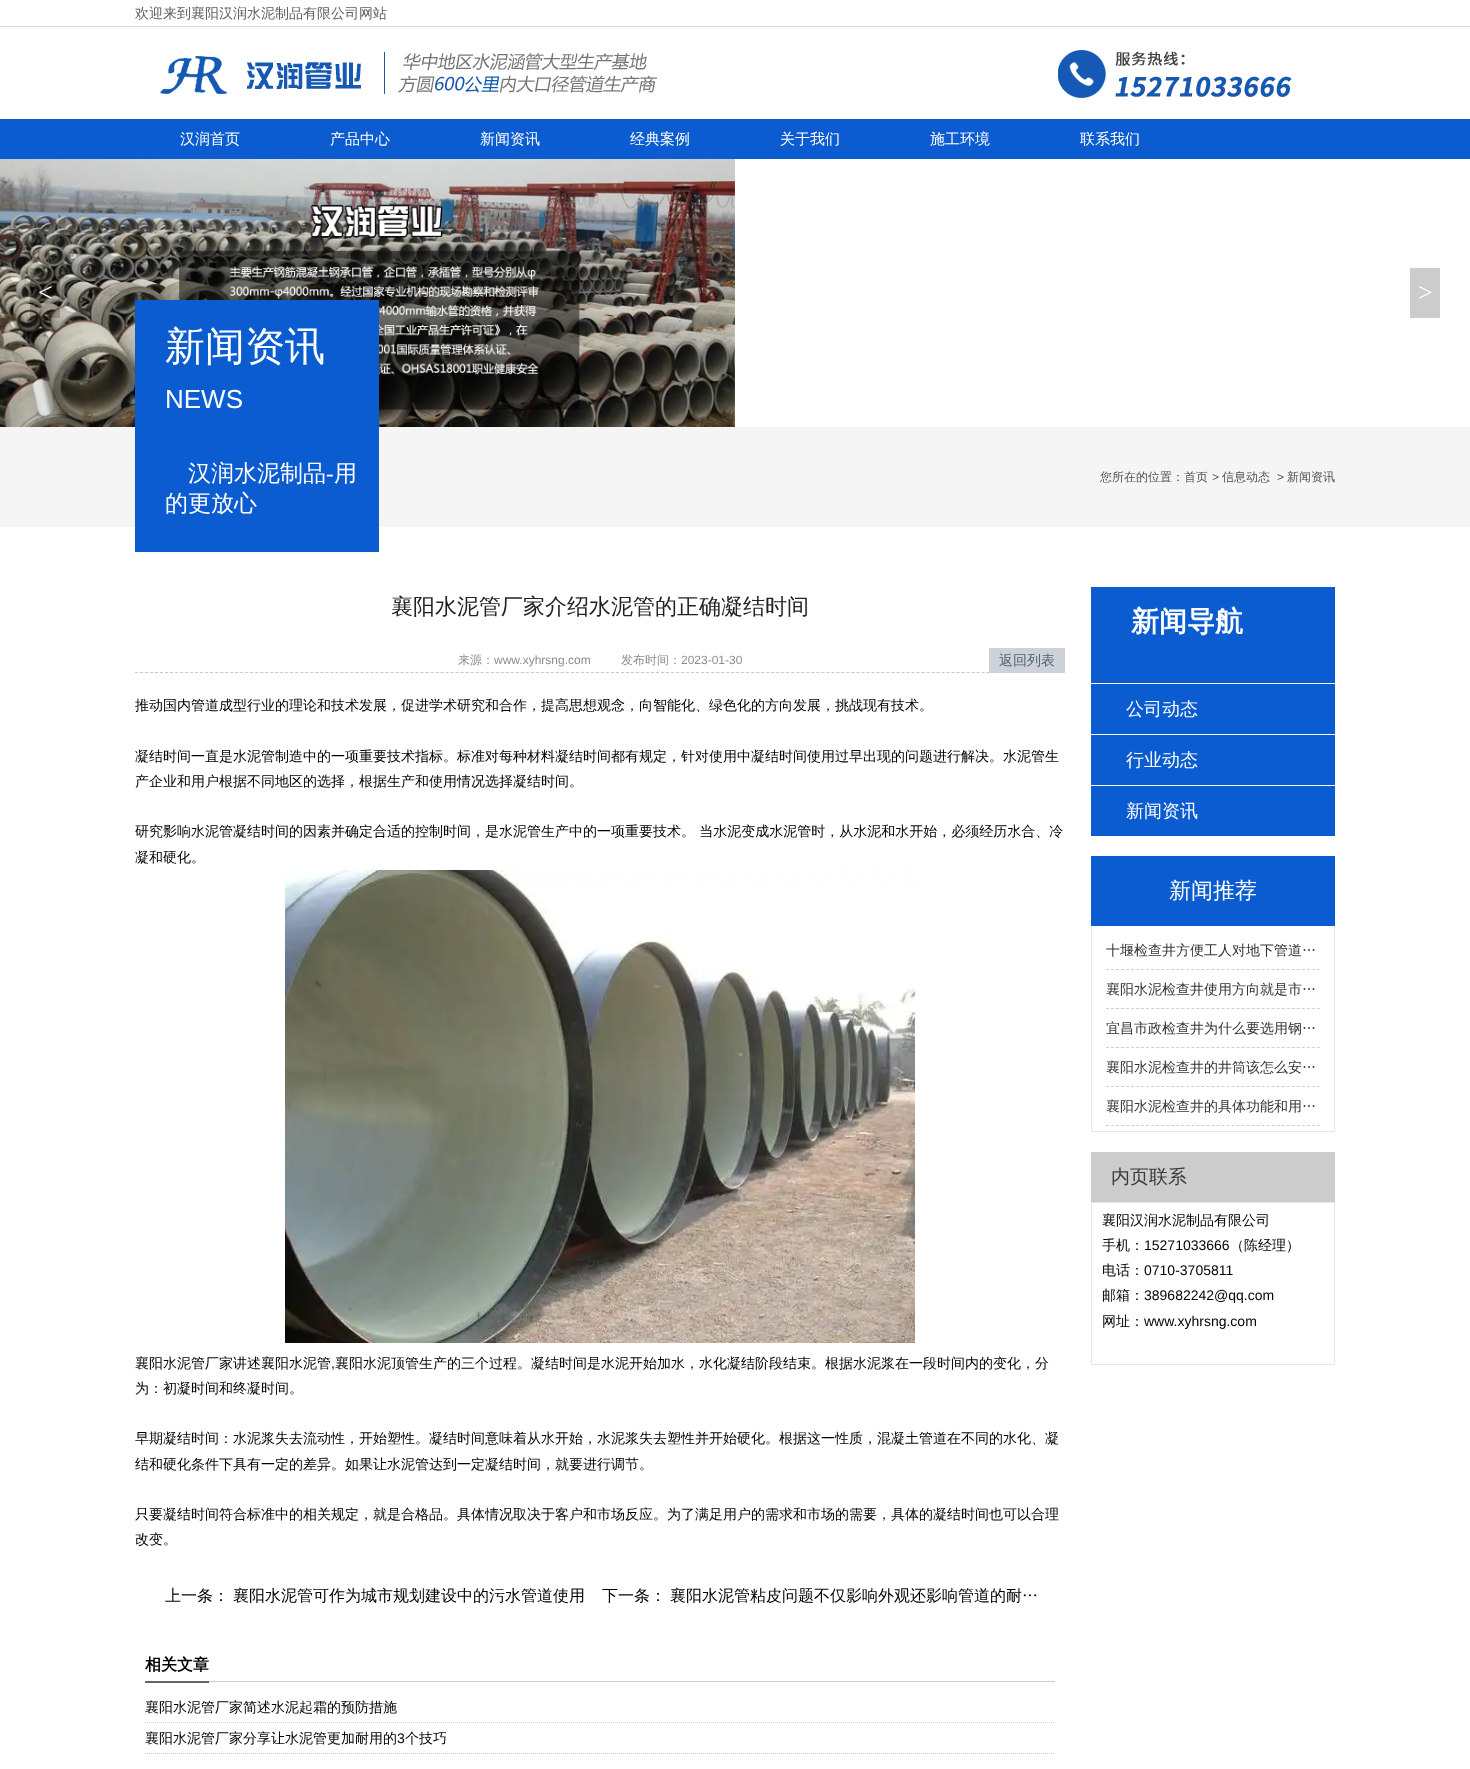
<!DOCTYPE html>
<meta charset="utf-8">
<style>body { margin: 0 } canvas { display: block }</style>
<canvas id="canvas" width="1470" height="1769"></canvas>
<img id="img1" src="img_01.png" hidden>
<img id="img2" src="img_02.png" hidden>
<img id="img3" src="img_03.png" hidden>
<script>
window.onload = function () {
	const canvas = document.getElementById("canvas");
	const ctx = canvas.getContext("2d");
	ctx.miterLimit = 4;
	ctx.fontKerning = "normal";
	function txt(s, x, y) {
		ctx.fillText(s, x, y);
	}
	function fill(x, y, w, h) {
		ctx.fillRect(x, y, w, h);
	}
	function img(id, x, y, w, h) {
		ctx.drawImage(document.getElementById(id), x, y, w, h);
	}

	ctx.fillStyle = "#FFFFFF";
	fill(0, 0, 1470, 1769);
	ctx.fillStyle = "#D9D9D9";
	fill(0, 26, 1470, 1);
	img("img1", 160, 50, 1132, 48);
	ctx.fillStyle = "#0C5CD1";
	fill(0, 119, 1470, 40);
	img("img2", 0, 159, 735, 268);
	ctx.fillStyle = "rgba(0, 0, 0, 0.2)";
	fill(30, 268, 30, 50);
	ctx.fillStyle = "#CCCCCC";
	fill(1410, 268, 30, 50);
	ctx.fillStyle = "#F5F5F5";
	fill(0, 427, 1470, 100);
	ctx.fillStyle = "#0C5CD1";
	fill(135, 300, 244, 252);
	ctx.beginPath();
	ctx.moveTo(135, 672.5);
	ctx.lineTo(1065, 672.5);
	ctx.strokeStyle = "#C7C7C7";
	ctx.setLineDash([3, 2.01]);
	ctx.stroke();
	ctx.fillStyle = "#CCD2D8";
	fill(989, 648, 76, 25);
	img("img3", 285, 870, 630, 473);
	ctx.fillStyle = "#CCCCCC";
	fill(209, 1681, 846, 1);
	ctx.fillStyle = "#666666";
	fill(145, 1681, 64, 2);
	ctx.beginPath();
	ctx.moveTo(145, 1722.5);
	ctx.lineTo(1055, 1722.5);
	ctx.strokeStyle = "#CCCCCC";
	ctx.setLineDash([1, 1]);
	ctx.stroke();
	ctx.beginPath();
	ctx.moveTo(145, 1753.5);
	ctx.lineTo(1055, 1753.5);
	ctx.stroke();
	ctx.fillStyle = "#0C5CD1";
	fill(1091, 587, 244, 96);
	fill(1091, 684, 244, 50);
	fill(1091, 735, 244, 50);
	fill(1091, 786, 244, 50);
	fill(1091, 856, 244, 70);
	ctx.fillStyle = "#E7E7E7";
	fill(1334, 926, 1, 206);
	fill(1091, 1131, 244, 1);
	fill(1091, 926, 1, 206);
	ctx.beginPath();
	ctx.moveTo(1106, 969.5);
	ctx.lineTo(1320, 969.5);
	ctx.strokeStyle = "#D2CDCD";
	ctx.setLineDash([3, 2.02]);
	ctx.stroke();
	ctx.beginPath();
	ctx.moveTo(1106, 1008.5);
	ctx.lineTo(1320, 1008.5);
	ctx.stroke();
	ctx.beginPath();
	ctx.moveTo(1106, 1047.5);
	ctx.lineTo(1320, 1047.5);
	ctx.stroke();
	ctx.beginPath();
	ctx.moveTo(1106, 1086.5);
	ctx.lineTo(1320, 1086.5);
	ctx.stroke();
	ctx.beginPath();
	ctx.moveTo(1106, 1125.5);
	ctx.lineTo(1320, 1125.5);
	ctx.stroke();
	ctx.fillStyle = "#CCCCCC";
	fill(1091, 1152, 244, 50);
	ctx.strokeStyle = "#E7E7E7";
	ctx.setLineDash([]);
	ctx.strokeRect(1091.5, 1202.5, 243, 162);
	ctx.font = "500 14px WenQuanYi Zen Hei";
	ctx.fillStyle = "#5E5E5E";
	txt("欢迎来到襄阳汉润水泥制品有限公司网站", 135, 18);
	ctx.font = "500 15px WenQuanYi Zen Hei";
	ctx.fillStyle = "#FFFFFF";
	txt("汉润首页", 180, 144);
	txt("产品中心", 330, 144);
	txt("新闻资讯", 480, 144);
	txt("经典案例", 630, 144);
	txt("关于我们", 780, 144);
	txt("施工环境", 930, 144);
	txt("联系我们", 1080, 144);
	ctx.font = "26px Liberation Serif";
	txt("<", 38, 301);
	txt(">", 1418, 301);
	ctx.font = "500 40px WenQuanYi Zen Hei";
	txt("新闻资讯", 165, 360);
	ctx.font = "26px Liberation Sans";
	txt("NEWS", 165, 408);
	ctx.font = "500 23px WenQuanYi Zen Hei";
	txt("汉润水泥制品", 188, 481);
	ctx.font = "23px Liberation Serif";
	txt("-", 326, 481);
	ctx.font = "500 23px WenQuanYi Zen Hei";
	txt("用", 334, 481);
	txt("的更放心", 165, 511);
	ctx.font = "500 12px WenQuanYi Zen Hei";
	ctx.fillStyle = "#515151";
	txt("您所在的位置：首页", 1100, 481);
	ctx.font = "12px Liberation Sans";
	txt(">", 1212, 481);
	ctx.font = "500 12px WenQuanYi Zen Hei";
	txt("信息动态", 1222, 481);
	ctx.font = "12px Liberation Sans";
	txt(">", 1277, 481);
	ctx.font = "500 12px WenQuanYi Zen Hei";
	txt("新闻资讯", 1287, 481);
	ctx.font = "500 22px WenQuanYi Zen Hei";
	ctx.fillStyle = "#222222";
	txt("襄阳水泥管厂家介绍水泥管的正确凝结时间", 391, 614);
	ctx.font = "500 12px WenQuanYi Zen Hei";
	ctx.fillStyle = "#8D8D8D";
	txt("来源：", 458, 664);
	ctx.font = "12px Liberation Sans";
	txt("www.xyhrsng.com", 494, 664);
	ctx.font = "500 12px WenQuanYi Zen Hei";
	txt("发布时间：", 621, 664);
	ctx.font = "12px Liberation Sans";
	txt("2023-01-30", 681, 664);
	ctx.font = "500 14px WenQuanYi Zen Hei";
	ctx.fillStyle = "#526373";
	txt("返回列表", 999, 665);
	ctx.fillStyle = "#000000";
	txt("推动国内管道成型行业的理论和技术发展，促进学术研究和合作，提高思想观念，向智能化、绿色化的方向发展，挑战现有技术。", 135, 710);
	txt("凝结时间一直是水泥管制造中的一项重要技术指标。标准对每种材料凝结时间都有规定，针对使用中凝结时间使用过早出现的问题进行解决。水泥管生", 135, 761);
	txt("产企业和用户根据不同地区的选择，根据生产和使用情况选择凝结时间。", 135, 786);
	txt("研究影响水泥管凝结时间的因素并确定合适的控制时间，是水泥管生产中的一项重要技术。 当水泥变成水泥管时，从水泥和水开始，必须经历水合、冷", 135, 836);
	txt("凝和硬化。", 135, 862);
	txt("襄阳水泥管厂家讲述襄阳水泥管", 135, 1368);
	ctx.font = "14px Liberation Sans";
	txt(",", 331, 1368);
	ctx.font = "500 14px WenQuanYi Zen Hei";
	txt("襄阳水泥顶管生产的三个过程。凝结时间是水泥开始加水，水化凝结阶段结束。根据水泥浆在一段时间内的变化，分", 335, 1368);
	txt("为：初凝时间和终凝时间。", 135, 1393);
	txt("早期凝结时间：水泥浆失去流动性，开始塑性。凝结时间意味着从水开始，水泥浆失去塑性并开始硬化。根据这一性质，混凝土管道在不同的水化、凝", 135, 1443);
	txt("结和硬化条件下具有一定的差异。如果让水泥管达到一定凝结时间，就要进行调节。", 135, 1469);
	txt("只要凝结时间符合标准中的相关规定，就是合格品。具体情况取决于客户和市场反应。为了满足用户的需求和市场的需要，具体的凝结时间也可以合理", 135, 1519);
	txt("改变。", 135, 1544);
	ctx.font = "500 16px WenQuanYi Zen Hei";
	txt("上一条：", 165, 1601);
	txt("襄阳水泥管可作为城市规划建设中的污水管道使用", 233, 1601);
	txt("下一条：", 602, 1601);
	txt("襄阳水泥管粘皮问题不仅影响外观还影响管道的耐…", 670, 1601);
	ctx.font = "bold 16px WenQuanYi Zen Hei";
	txt("相关文章", 145, 1670);
	ctx.font = "500 14px WenQuanYi Zen Hei";
	txt("襄阳水泥管厂家简述水泥起霜的预防措施", 145, 1712);
	txt("襄阳水泥管厂家分享让水泥管更加耐用的", 145, 1743);
	ctx.font = "14px Liberation Sans";
	txt("3", 397, 1743);
	ctx.font = "500 14px WenQuanYi Zen Hei";
	txt("个技巧", 405, 1743);
	ctx.font = "bold 28px WenQuanYi Zen Hei";
	ctx.fillStyle = "#FFFFFF";
	txt("新闻导航", 1131, 631);
	ctx.font = "500 18px WenQuanYi Zen Hei";
	txt("公司动态", 1126, 715);
	txt("行业动态", 1126, 766);
	txt("新闻资讯", 1126, 817);
	ctx.font = "500 22px WenQuanYi Zen Hei";
	txt("新闻推荐", 1169, 898);
	ctx.font = "500 14px WenQuanYi Zen Hei";
	ctx.fillStyle = "#333333";
	txt("十堰检查井方便工人对地下管道…", 1106, 955);
	txt("襄阳水泥检查井使用方向就是市…", 1106, 994);
	txt("宜昌市政检查井为什么要选用钢…", 1106, 1033);
	txt("襄阳水泥检查井的井筒该怎么安…", 1106, 1072);
	txt("襄阳水泥检查井的具体功能和用…", 1106, 1111);
	ctx.font = "500 19px WenQuanYi Zen Hei";
	ctx.fillStyle = "#3B3B3B";
	txt("内页联系", 1111, 1183);
	ctx.font = "500 14px WenQuanYi Zen Hei";
	ctx.fillStyle = "#000000";
	txt("襄阳汉润水泥制品有限公司", 1102, 1225);
	txt("手机：", 1102, 1250);
	ctx.font = "14px Liberation Sans";
	txt("15271033666", 1144, 1250);
	ctx.font = "500 14px WenQuanYi Zen Hei";
	txt("（陈经理）", 1230, 1250);
	txt("电话：", 1102, 1275);
	ctx.font = "14px Liberation Sans";
	txt("0710-3705811", 1144, 1275);
	ctx.font = "500 14px WenQuanYi Zen Hei";
	txt("邮箱：", 1102, 1300);
	ctx.font = "14px Liberation Sans";
	txt("389682242@qq.com", 1144, 1300);
	ctx.font = "500 14px WenQuanYi Zen Hei";
	txt("网址：", 1102, 1326);
	ctx.font = "14px Liberation Sans";
	txt("www.xyhrsng.com", 1144, 1326);
};
</script>
